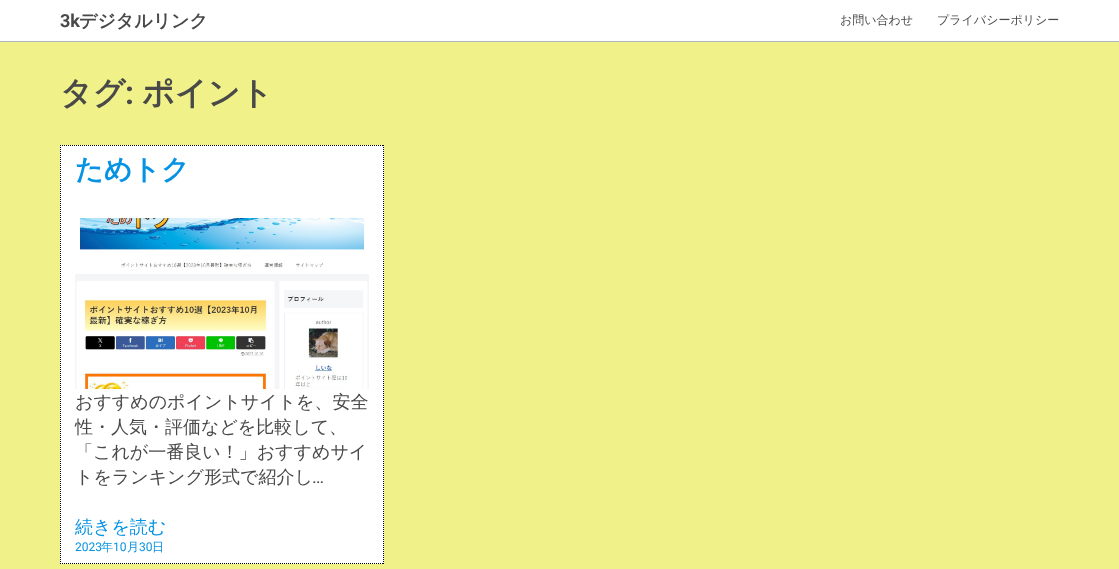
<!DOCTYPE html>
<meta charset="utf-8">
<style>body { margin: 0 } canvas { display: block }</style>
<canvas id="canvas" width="1119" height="569"></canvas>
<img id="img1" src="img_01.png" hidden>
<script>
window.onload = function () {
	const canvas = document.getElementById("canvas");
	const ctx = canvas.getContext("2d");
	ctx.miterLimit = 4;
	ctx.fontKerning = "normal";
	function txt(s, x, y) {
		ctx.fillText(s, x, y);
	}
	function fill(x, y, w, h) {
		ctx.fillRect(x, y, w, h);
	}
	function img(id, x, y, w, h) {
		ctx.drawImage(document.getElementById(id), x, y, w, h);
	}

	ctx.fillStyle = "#F0F289";
	fill(0, 0, 1119, 569);
	ctx.fillStyle = "#FFFFFF";
	fill(0, 0, 1119, 41);
	ctx.fillStyle = "#ABB8C3";
	fill(0, 41, 1119, 1);
	ctx.fillStyle = "#FFFFFF";
	fill(60, 145, 324, 419);
	ctx.beginPath();
	ctx.moveTo(60, 145.5);
	ctx.lineTo(384, 145.5);
	ctx.strokeStyle = "#000000";
	ctx.setLineDash([1, 1]);
	ctx.stroke();
	ctx.beginPath();
	ctx.moveTo(383.5, 145);
	ctx.lineTo(383.5, 564);
	ctx.stroke();
	ctx.beginPath();
	ctx.moveTo(60, 563.5);
	ctx.lineTo(384, 563.5);
	ctx.stroke();
	ctx.beginPath();
	ctx.moveTo(60.5, 145);
	ctx.lineTo(60.5, 564);
	ctx.stroke();
	img("img1", 75, 218, 294, 171);
	ctx.font = "bold 18px Roboto";
	ctx.fillStyle = "#494949";
	txt("3k", 60, 27);
	ctx.font = "bold 18px WenQuanYi Zen Hei";
	txt("デジタルリンク", 79, 27);
	ctx.font = "500 12px WenQuanYi Zen Hei";
	txt("お問い合わせ", 840, 24);
	txt("プライバシーポリシー", 937, 24);
	ctx.font = "bold 32px WenQuanYi Zen Hei";
	txt("タグ", 60, 104);
	ctx.font = "bold 32px Roboto";
	txt(":", 125, 104);
	ctx.font = "bold 32px WenQuanYi Zen Hei";
	txt("ポイント", 142, 104);
	ctx.font = "bold 28px WenQuanYi Zen Hei";
	ctx.fillStyle = "#0693E3";
	txt("ためトク", 75, 179);
	ctx.font = "500 18px WenQuanYi Zen Hei";
	ctx.fillStyle = "#494949";
	txt("おすすめのポイントサイトを、安全", 75, 408);
	txt("性・人気・評価などを比較して、", 75, 433);
	txt("「これが一番良い！」おすすめサイ", 75, 458);
	txt("トをランキング形式で紹介し", 75, 483);
	ctx.font = "18px Roboto";
	txt("…", 312, 483);
	ctx.font = "500 18px WenQuanYi Zen Hei";
	ctx.fillStyle = "#0693E3";
	txt("続きを読む", 75, 533);
	ctx.font = "12px Roboto";
	txt("2023", 75, 551);
	ctx.font = "500 12px WenQuanYi Zen Hei";
	txt("年", 101, 551);
	ctx.font = "12px Roboto";
	txt("10", 113, 551);
	ctx.font = "500 12px WenQuanYi Zen Hei";
	txt("月", 127, 551);
	ctx.font = "12px Roboto";
	txt("30", 139, 551);
	ctx.font = "500 12px WenQuanYi Zen Hei";
	txt("日", 152, 551);
};
</script>
